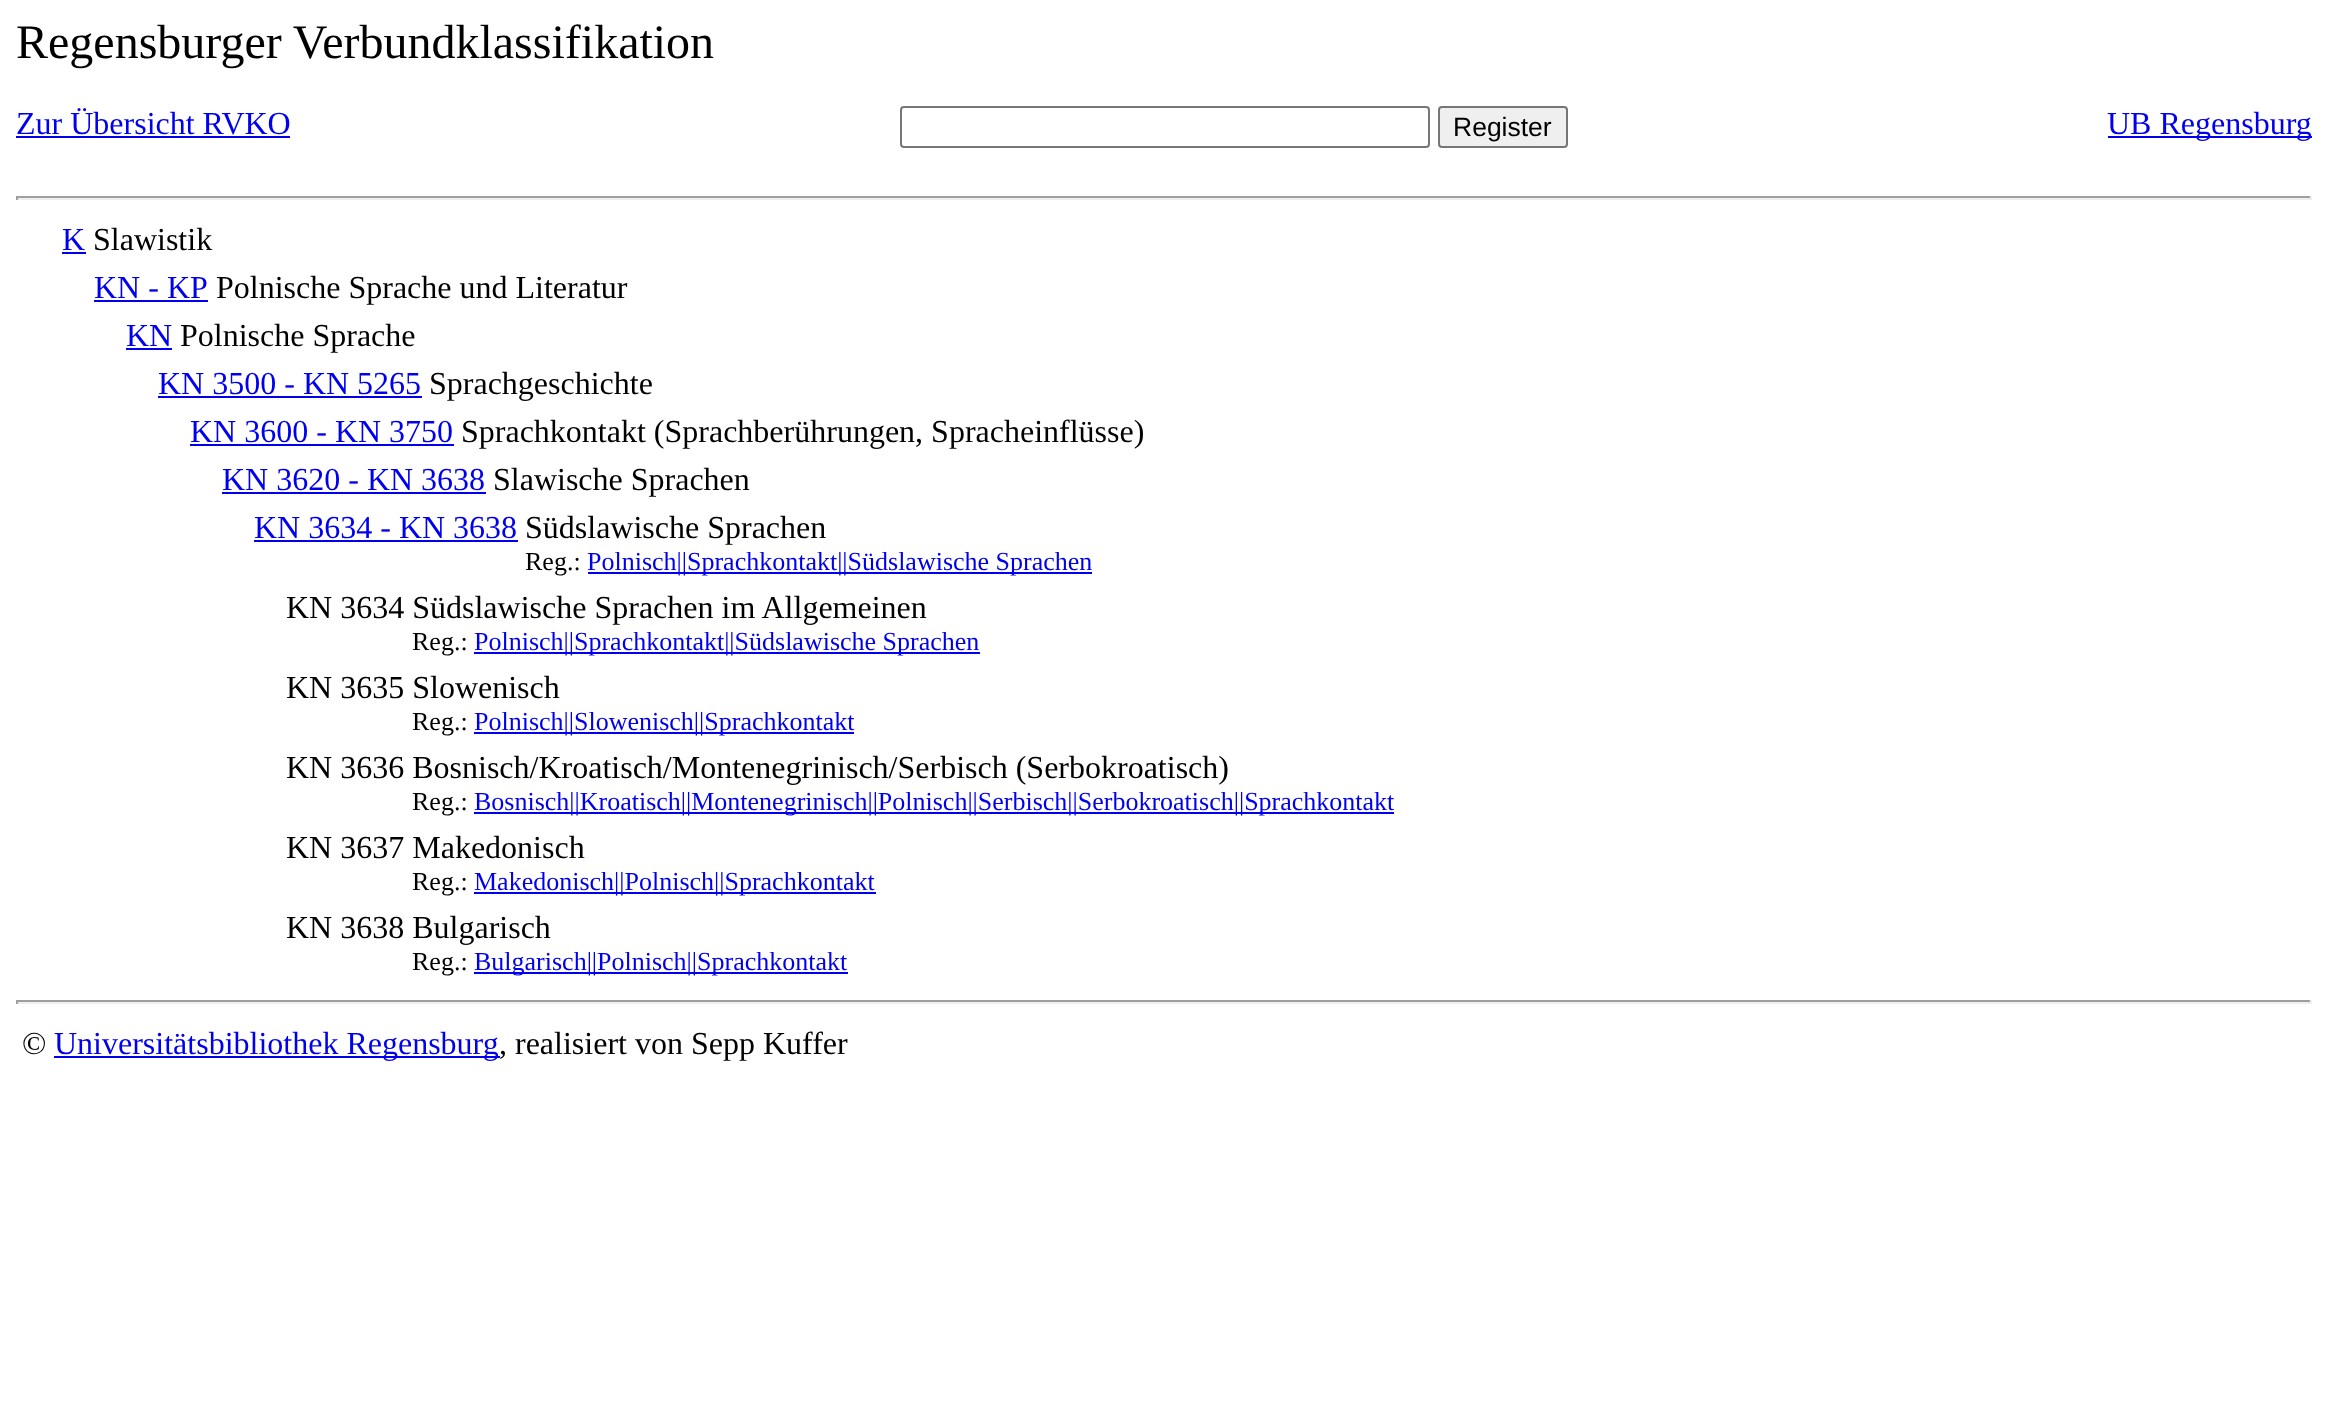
<!DOCTYPE html>
<meta charset="utf-8">
<style>body { margin: 0 } canvas { display: block }</style>
<canvas id="canvas" width="2327" height="1419"></canvas>
<script>
window.onload = function () {
	const canvas = document.getElementById("canvas");
	const ctx = canvas.getContext("2d");
	ctx.miterLimit = 4;
	ctx.fontKerning = "normal";
	function txt(s, x, y) {
		ctx.fillText(s, x, y);
	}
	function fill(x, y, w, h) {
		ctx.fillRect(x, y, w, h);
	}

	ctx.fillStyle = "#FFFFFF";
	fill(0, 0, 2327, 1419);
	ctx.fillStyle = "#0000EE";
	fill(16, 136, 274, 2);
	ctx.beginPath();
	ctx.roundRect(901, 107, 528, 40, 3);
	ctx.strokeStyle = "#767676";
	ctx.lineWidth = 2;
	ctx.stroke();
	ctx.fillStyle = "#EFEFEF";
	ctx.beginPath();
	ctx.roundRect(1439, 107, 128, 40, 3);
	ctx.fill();
	ctx.stroke();
	ctx.fillStyle = "#0000EE";
	fill(2108, 136, 204, 2);
	ctx.fillStyle = "#9F9F9F";
	fill(16, 196, 2296, 2);
	ctx.fillStyle = "#EEEEEE";
	fill(2310, 196, 2, 4);
	fill(16, 198, 2296, 2);
	ctx.fillStyle = "#9F9F9F";
	fill(16, 196, 2, 4);
	ctx.fillStyle = "#0000EE";
	fill(62, 252, 24, 2);
	fill(94, 300, 114, 2);
	fill(126, 348, 46, 2);
	fill(158, 396, 264, 2);
	fill(190, 444, 264, 2);
	fill(222, 492, 264, 2);
	fill(254, 540, 264, 2);
	fill(588, 572, 504, 2);
	fill(474, 652, 506, 2);
	fill(474, 732, 380, 2);
	fill(474, 812, 920, 2);
	fill(474, 892, 402, 2);
	fill(474, 972, 374, 2);
	ctx.fillStyle = "#9F9F9F";
	fill(16, 1000, 2296, 2);
	ctx.fillStyle = "#EEEEEE";
	fill(2310, 1000, 2, 4);
	fill(16, 1002, 2296, 2);
	ctx.fillStyle = "#9F9F9F";
	fill(16, 1000, 2, 4);
	ctx.fillStyle = "#0000EE";
	fill(54, 1056, 446, 2);
	ctx.font = "48px Liberation Serif";
	ctx.fillStyle = "#000000";
	txt("Regensburger Verbundklassifikation", 16, 58);
	ctx.font = "32px Liberation Serif";
	ctx.fillStyle = "#0000EE";
	txt("Zur Übersicht RVKO", 16, 134);
	ctx.font = "26.5px Liberation Sans";
	ctx.fillStyle = "#000000";
	txt("Register", 1453, 136);
	ctx.font = "32px Liberation Serif";
	ctx.fillStyle = "#0000EE";
	txt("UB Regensburg", 2107, 134);
	txt("K", 62, 250);
	ctx.fillStyle = "#000000";
	txt("Slawistik", 93, 250);
	ctx.fillStyle = "#0000EE";
	txt("KN - KP", 94, 298);
	ctx.fillStyle = "#000000";
	txt("Polnische Sprache und Literatur", 216, 298);
	ctx.fillStyle = "#0000EE";
	txt("KN", 126, 346);
	ctx.fillStyle = "#000000";
	txt("Polnische Sprache", 180, 346);
	ctx.fillStyle = "#0000EE";
	txt("KN 3500 - KN 5265", 158, 394);
	ctx.fillStyle = "#000000";
	txt("Sprachgeschichte", 429, 394);
	ctx.fillStyle = "#0000EE";
	txt("KN 3600 - KN 3750", 190, 442);
	ctx.fillStyle = "#000000";
	txt("Sprachkontakt (Sprachberührungen, Spracheinflüsse)", 461, 442);
	ctx.fillStyle = "#0000EE";
	txt("KN 3620 - KN 3638", 222, 490);
	ctx.fillStyle = "#000000";
	txt("Slawische Sprachen", 493, 490);
	ctx.fillStyle = "#0000EE";
	txt("KN 3634 - KN 3638", 254, 538);
	ctx.fillStyle = "#000000";
	txt("Südslawische Sprachen", 525, 538);
	ctx.font = "26px Liberation Serif";
	txt("Reg.:", 525, 570);
	ctx.fillStyle = "#0000EE";
	txt("Polnisch||Sprachkontakt||Südslawische Sprachen", 587, 570);
	ctx.font = "32px Liberation Serif";
	ctx.fillStyle = "#000000";
	txt("KN 3634 Südslawische Sprachen im Allgemeinen", 286, 618);
	ctx.font = "26px Liberation Serif";
	txt("Reg.:", 412, 650);
	ctx.fillStyle = "#0000EE";
	txt("Polnisch||Sprachkontakt||Südslawische Sprachen", 474, 650);
	ctx.font = "32px Liberation Serif";
	ctx.fillStyle = "#000000";
	txt("KN 3635 Slowenisch", 286, 698);
	ctx.font = "26px Liberation Serif";
	txt("Reg.:", 412, 730);
	ctx.fillStyle = "#0000EE";
	txt("Polnisch||Slowenisch||Sprachkontakt", 474, 730);
	ctx.font = "32px Liberation Serif";
	ctx.fillStyle = "#000000";
	txt("KN 3636 Bosnisch/Kroatisch/Montenegrinisch/Serbisch (Serbokroatisch)", 286, 778);
	ctx.font = "26px Liberation Serif";
	txt("Reg.:", 412, 810);
	ctx.fillStyle = "#0000EE";
	txt("Bosnisch||Kroatisch||Montenegrinisch||Polnisch||Serbisch||Serbokroatisch||Sprachkontakt", 474, 810);
	ctx.font = "32px Liberation Serif";
	ctx.fillStyle = "#000000";
	txt("KN 3637 Makedonisch", 286, 858);
	ctx.font = "26px Liberation Serif";
	txt("Reg.:", 412, 890);
	ctx.fillStyle = "#0000EE";
	txt("Makedonisch||Polnisch||Sprachkontakt", 474, 890);
	ctx.font = "32px Liberation Serif";
	ctx.fillStyle = "#000000";
	txt("KN 3638 Bulgarisch", 286, 938);
	ctx.font = "26px Liberation Serif";
	txt("Reg.:", 412, 970);
	ctx.fillStyle = "#0000EE";
	txt("Bulgarisch||Polnisch||Sprachkontakt", 474, 970);
	ctx.font = "32px Liberation Serif";
	ctx.fillStyle = "#000000";
	txt("©", 22, 1054);
	ctx.fillStyle = "#0000EE";
	txt("Universitätsbibliothek Regensburg", 54, 1054);
	ctx.fillStyle = "#000000";
	txt(", realisiert von Sepp Kuffer", 499, 1054);
};
</script>
